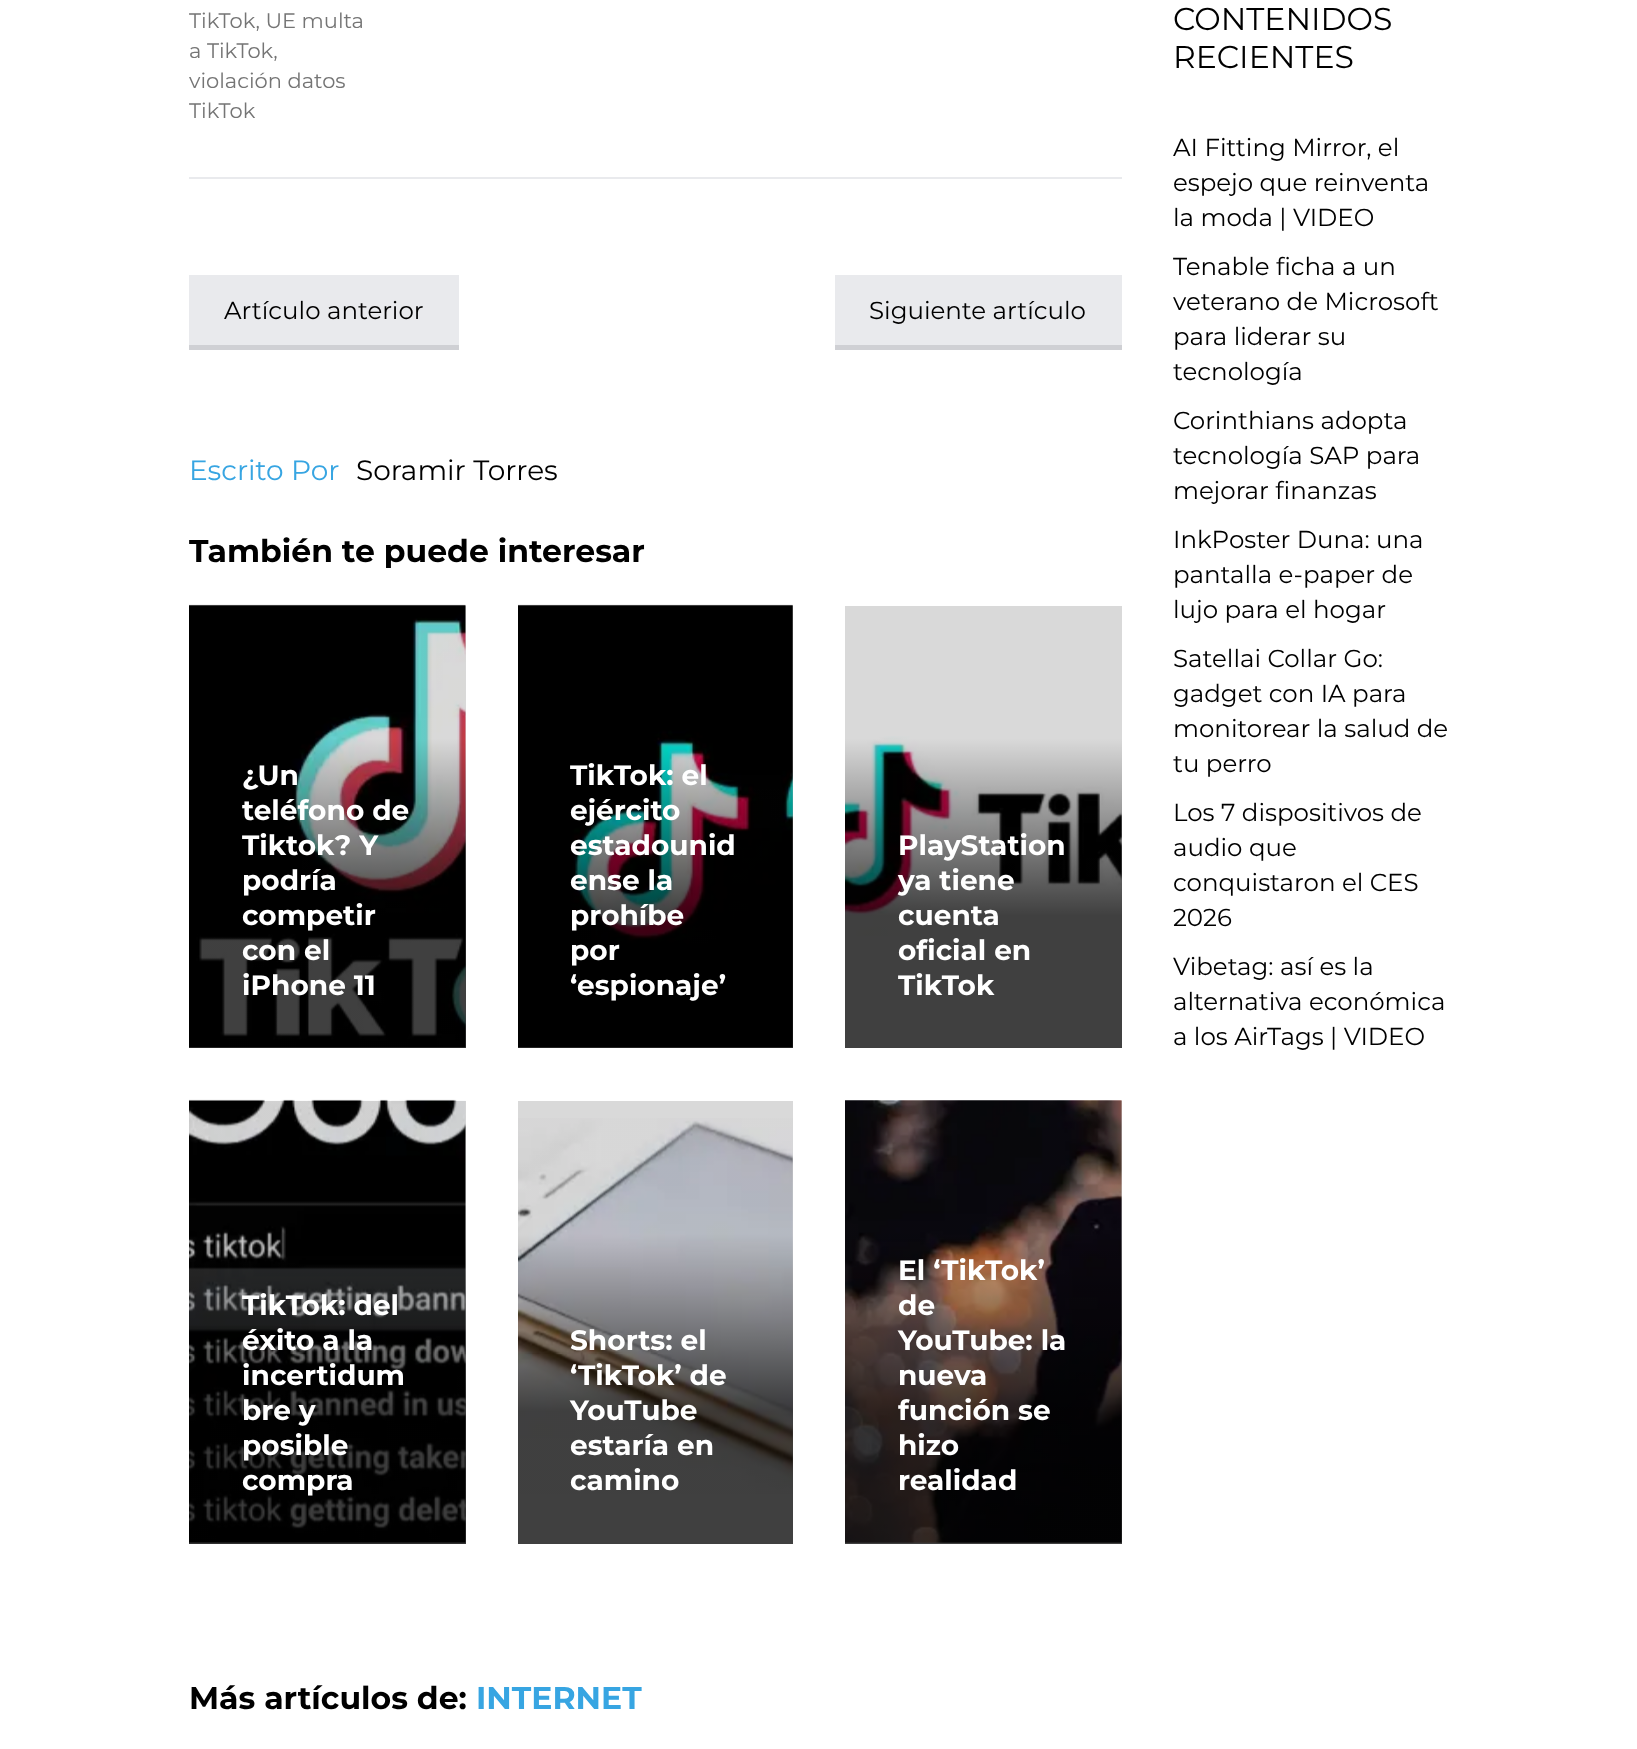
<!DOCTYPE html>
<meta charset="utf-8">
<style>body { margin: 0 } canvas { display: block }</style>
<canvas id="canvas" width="1637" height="1749"></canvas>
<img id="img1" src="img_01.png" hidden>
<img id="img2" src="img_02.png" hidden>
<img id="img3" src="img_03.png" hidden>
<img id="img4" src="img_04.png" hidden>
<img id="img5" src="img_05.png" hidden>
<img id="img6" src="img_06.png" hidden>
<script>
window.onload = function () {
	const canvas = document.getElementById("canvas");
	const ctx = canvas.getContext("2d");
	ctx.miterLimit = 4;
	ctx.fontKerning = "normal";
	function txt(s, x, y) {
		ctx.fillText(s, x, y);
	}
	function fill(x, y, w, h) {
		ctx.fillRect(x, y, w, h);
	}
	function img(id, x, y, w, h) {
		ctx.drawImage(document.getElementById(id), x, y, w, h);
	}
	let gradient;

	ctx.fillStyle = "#FFFFFF";
	fill(0, 0, 1637, 1749);
	ctx.fillStyle = "#E9EAED";
	fill(189, 177, 933, 2);
	fill(189, 275, 270, 70);
	ctx.fillStyle = "#CFD0D4";
	fill(189, 345, 270, 5);
	ctx.fillStyle = "#E9EAED";
	fill(835, 275, 287, 70);
	ctx.fillStyle = "#CFD0D4";
	fill(835, 345, 287, 5);
	img("img1", 189, 604, 277, 444);
	gradient = ctx.createLinearGradient(327, 606, 327, 1048);
	gradient.addColorStop(0.3, "rgba(0, 0, 0, 0.15)");
	gradient.addColorStop(0.7, "rgba(0, 0, 0, 0.75)");
	ctx.fillStyle = gradient;
	fill(189, 606, 277, 442);
	img("img2", 518, 604, 275, 444);
	gradient = ctx.createLinearGradient(655, 606, 655, 1048);
	gradient.addColorStop(0.3, "rgba(0, 0, 0, 0.15)");
	gradient.addColorStop(0.7, "rgba(0, 0, 0, 0.75)");
	ctx.fillStyle = gradient;
	fill(518, 606, 275, 442);
	img("img3", 845, 736, 277, 200);
	gradient = ctx.createLinearGradient(984, 606, 984, 1048);
	gradient.addColorStop(0.3, "rgba(0, 0, 0, 0.15)");
	gradient.addColorStop(0.7, "rgba(0, 0, 0, 0.75)");
	ctx.fillStyle = gradient;
	fill(845, 606, 277, 442);
	img("img4", 189, 1099, 277, 445);
	gradient = ctx.createLinearGradient(327, 1101, 327, 1544);
	gradient.addColorStop(0.3, "rgba(0, 0, 0, 0.15)");
	gradient.addColorStop(0.7, "rgba(0, 0, 0, 0.75)");
	ctx.fillStyle = gradient;
	fill(189, 1101, 277, 443);
	img("img5", 518, 1118, 275, 376);
	gradient = ctx.createLinearGradient(655, 1101, 655, 1544);
	gradient.addColorStop(0.3, "rgba(0, 0, 0, 0.15)");
	gradient.addColorStop(0.7, "rgba(0, 0, 0, 0.75)");
	ctx.fillStyle = gradient;
	fill(518, 1101, 275, 443);
	img("img6", 845, 1100, 277, 443);
	gradient = ctx.createLinearGradient(984, 1101, 984, 1544);
	gradient.addColorStop(0.3, "rgba(0, 0, 0, 0.15)");
	gradient.addColorStop(0.7, "rgba(0, 0, 0, 0.75)");
	ctx.fillStyle = gradient;
	fill(845, 1101, 277, 443);
	ctx.font = "21px Montserrat";
	ctx.fillStyle = "#757575";
	txt("TikTok, UE multa", 189, 28);
	txt("a TikTok,", 189, 58);
	txt("violación datos", 189, 88);
	txt("TikTok", 189, 118);
	ctx.font = "24.5px Montserrat";
	ctx.fillStyle = "#000000";
	txt("Artículo anterior", 224, 319);
	txt("Siguiente artículo", 869, 319);
	ctx.font = "28px Montserrat";
	ctx.fillStyle = "#37A5E2";
	txt("Escrito Por", 189, 480);
	ctx.fillStyle = "#000000";
	txt("Soramir Torres", 356, 480);
	ctx.font = "bold 31.5px Montserrat";
	txt("También te puede interesar", 189, 562);
	ctx.font = "bold 28px Montserrat";
	ctx.fillStyle = "#FFFFFF";
	txt("¿Un", 242, 785);
	txt("teléfono de", 242, 820);
	txt("Tiktok? Y", 242, 855);
	txt("podría", 242, 890);
	txt("competir", 242, 925);
	txt("con el", 242, 960);
	txt("iPhone 11", 242, 995);
	txt("TikTok: el", 570, 785);
	txt("ejército", 570, 820);
	txt("estadounid", 570, 855);
	txt("ense la", 570, 890);
	txt("prohíbe", 570, 925);
	txt("por", 570, 960);
	txt("‘espionaje’", 570, 995);
	txt("PlayStation", 898, 855);
	txt("ya tiene", 898, 890);
	txt("cuenta", 898, 925);
	txt("oficial en", 898, 960);
	txt("TikTok", 898, 995);
	txt("TikTok: del", 242, 1315);
	txt("éxito a la", 242, 1350);
	txt("incertidum", 242, 1385);
	txt("bre y", 242, 1420);
	txt("posible", 242, 1455);
	txt("compra", 242, 1490);
	txt("Shorts: el", 570, 1350);
	txt("‘TikTok’ de", 570, 1385);
	txt("YouTube", 570, 1420);
	txt("estaría en", 570, 1455);
	txt("camino", 570, 1490);
	txt("El ‘TikTok’", 898, 1280);
	txt("de", 898, 1315);
	txt("YouTube: la", 898, 1350);
	txt("nueva", 898, 1385);
	txt("función se", 898, 1420);
	txt("hizo", 898, 1455);
	txt("realidad", 898, 1490);
	ctx.font = "bold 31.5px Montserrat";
	ctx.fillStyle = "#000000";
	txt("Más artículos de:", 189, 1709);
	ctx.fillStyle = "#37A5E2";
	txt("INTERNET", 476, 1709);
	ctx.font = "31.5px Montserrat";
	ctx.fillStyle = "#000000";
	txt("CONTENIDOS", 1173, 30);
	txt("RECIENTES", 1173, 68);
	ctx.font = "24.5px Montserrat";
	txt("AI Fitting Mirror, el", 1173, 156);
	txt("espejo que reinventa", 1173, 191);
	txt("la moda | VIDEO", 1173, 226);
	txt("Tenable ficha a un", 1173, 275);
	txt("veterano de Microsoft", 1173, 310);
	txt("para liderar su", 1173, 345);
	txt("tecnología", 1173, 380);
	txt("Corinthians adopta", 1173, 429);
	txt("tecnología SAP para", 1173, 464);
	txt("mejorar finanzas", 1173, 499);
	txt("InkPoster Duna: una", 1173, 548);
	txt("pantalla e-paper de", 1173, 583);
	txt("lujo para el hogar", 1173, 618);
	txt("Satellai Collar Go:", 1173, 667);
	txt("gadget con IA para", 1173, 702);
	txt("monitorear la salud de", 1173, 737);
	txt("tu perro", 1173, 772);
	txt("Los 7 dispositivos de", 1173, 821);
	txt("audio que", 1173, 856);
	txt("conquistaron el CES", 1173, 891);
	txt("2026", 1173, 926);
	txt("Vibetag: así es la", 1173, 975);
	txt("alternativa económica", 1173, 1010);
	txt("a los AirTags | VIDEO", 1173, 1045);
};
</script>
